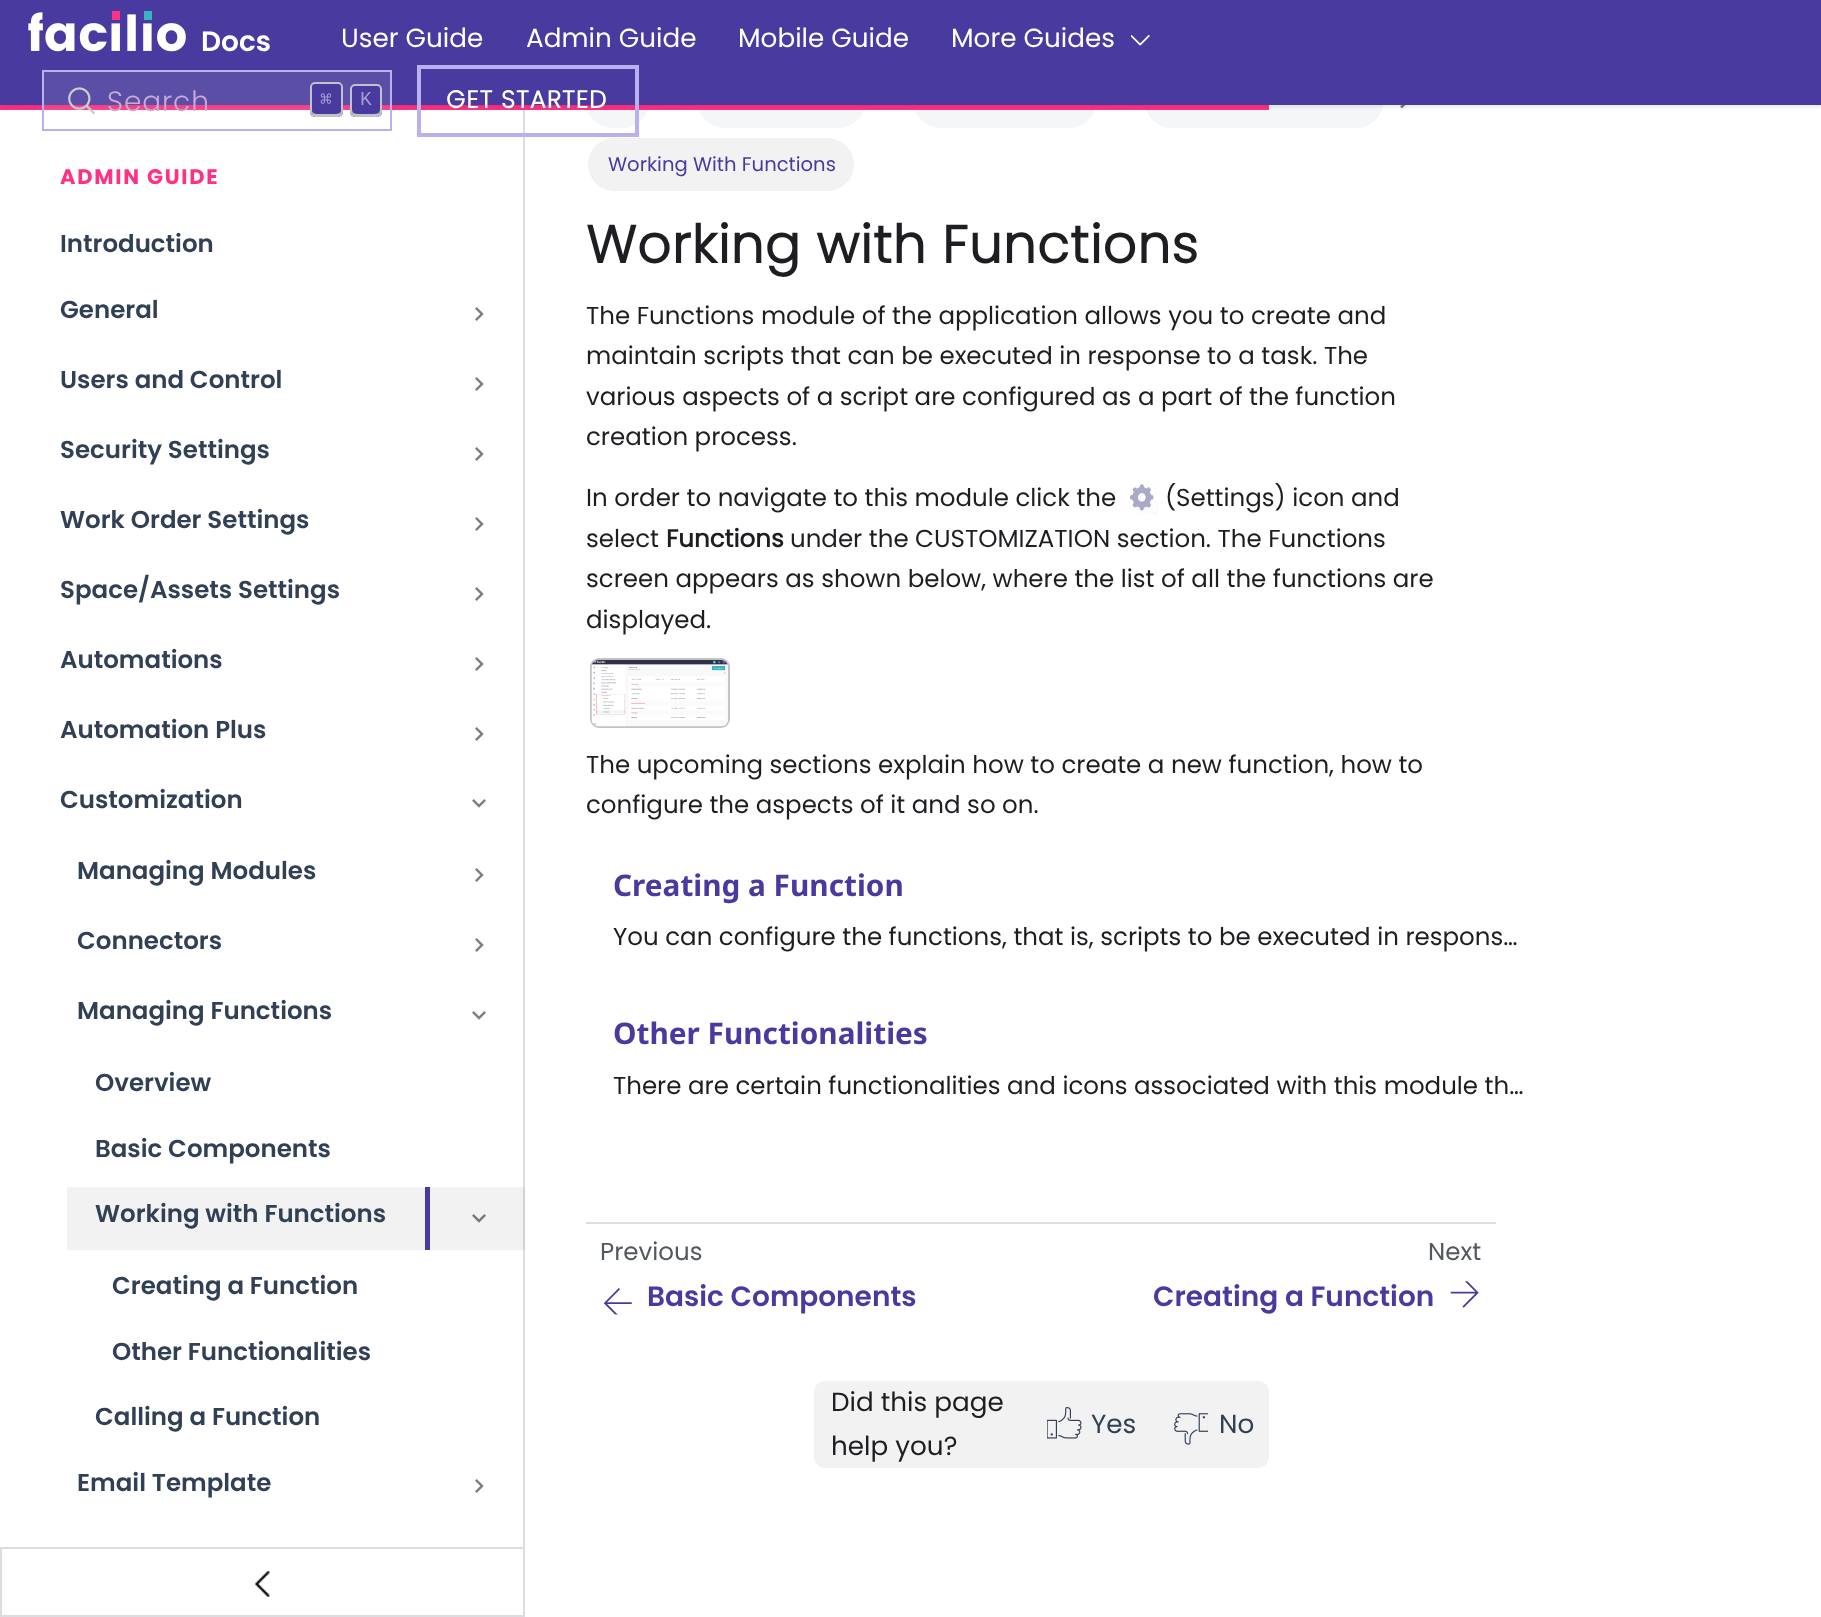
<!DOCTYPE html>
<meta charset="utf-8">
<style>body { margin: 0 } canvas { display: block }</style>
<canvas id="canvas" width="1821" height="1617"></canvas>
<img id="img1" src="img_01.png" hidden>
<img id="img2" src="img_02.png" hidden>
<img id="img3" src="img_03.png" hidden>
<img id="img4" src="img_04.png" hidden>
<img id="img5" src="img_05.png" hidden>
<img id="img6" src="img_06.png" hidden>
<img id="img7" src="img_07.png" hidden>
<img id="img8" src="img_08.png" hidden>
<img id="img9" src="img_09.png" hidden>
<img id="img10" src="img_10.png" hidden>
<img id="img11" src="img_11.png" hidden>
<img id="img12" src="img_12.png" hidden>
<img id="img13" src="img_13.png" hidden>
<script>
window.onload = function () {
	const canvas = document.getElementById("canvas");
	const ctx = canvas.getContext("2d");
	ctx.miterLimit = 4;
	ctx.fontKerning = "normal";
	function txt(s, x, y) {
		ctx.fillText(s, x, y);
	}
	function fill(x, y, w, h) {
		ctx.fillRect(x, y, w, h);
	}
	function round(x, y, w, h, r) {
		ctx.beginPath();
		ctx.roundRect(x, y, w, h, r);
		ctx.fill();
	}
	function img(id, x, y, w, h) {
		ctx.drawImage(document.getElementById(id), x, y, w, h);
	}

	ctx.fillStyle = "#FFFFFF";
	fill(0, 0, 1821, 1617);
	ctx.fillStyle = "#DADDE1";
	fill(523, 110, 2, 1437);
	ctx.fillStyle = "#F5F6F7";
	round(586, 75, 63, 53, 26.5);
	round(698, 75, 167, 53, 26.5);
	round(914, 75, 182, 53, 26.5);
	round(1145, 75, 238, 53, 26.5);
	ctx.fillStyle = "#FF3184";
	fill(0, 105, 1269, 5);
	ctx.fillStyle = "#808080";
	ctx.beginPath();
	ctx.moveTo(1402, 91);
	ctx.lineTo(1400, 93);
	ctx.lineTo(1406.5, 100);
	ctx.lineTo(1400, 106.5);
	ctx.lineTo(1402, 108.5);
	ctx.lineTo(1410.5, 100);
	ctx.closePath();
	ctx.fill();
	ctx.fillStyle = "rgba(0, 0, 0, 0.1)";
	ctx.filter = "blur(2px)";
	ctx.beginPath();
	ctx.rect(0, 2, 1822, 105);
	ctx.fill();
	ctx.filter = "none";
	ctx.fillStyle = "#483A9E";
	fill(0, 0, 1821, 105);
	img("img1", 28, 11, 158, 41);
	img("img2", 1131, 35, 19, 11);
	ctx.fillStyle = "rgba(255, 255, 255, 0.1)";
	fill(44, 72, 346, 38);
	img("img3", 68, 87, 27, 28);
	ctx.strokeStyle = "#B9B1EF";
	ctx.lineWidth = 2;
	ctx.strokeRect(43, 71, 348, 59);
	ctx.fillStyle = "#483A9E";
	round(310, 82, 33, 35, 5);
	ctx.fillStyle = "#BEC3C9";
	ctx.beginPath();
	ctx.moveTo(312, 111);
	ctx.bezierCurveTo(312, 116, 315, 116, 319.5, 116);
	ctx.lineTo(333.5, 116);
	ctx.bezierCurveTo(338.5, 116, 341, 116, 341, 110.5);
	ctx.bezierCurveTo(340.5, 114.5, 335, 114, 331.5, 114);
	ctx.lineTo(320.5, 114);
	ctx.bezierCurveTo(318, 114, 313, 114.5, 312, 111);
	ctx.closePath();
	ctx.moveTo(341, 90);
	ctx.lineTo(341, 87.5);
	ctx.closePath();
	ctx.fill("evenodd");
	ctx.beginPath();
	ctx.roundRect(311, 83, 31, 33, 4);
	ctx.strokeStyle = "#BEC3C9";
	ctx.stroke();
	ctx.fillStyle = "#483A9E";
	round(350, 84, 32, 33, 5);
	ctx.fillStyle = "#BEC3C9";
	ctx.beginPath();
	ctx.moveTo(352, 109.5);
	ctx.bezierCurveTo(352, 115.5, 353, 116, 359.5, 116);
	ctx.lineTo(372.5, 116);
	ctx.bezierCurveTo(379, 116, 380, 115.5, 380, 109.5);
	ctx.bezierCurveTo(379.5, 113.5, 377, 114, 373, 114);
	ctx.lineTo(359, 114);
	ctx.bezierCurveTo(355, 114, 352.5, 113.5, 352, 109.5);
	ctx.closePath();
	ctx.moveTo(380, 92);
	ctx.lineTo(380, 89);
	ctx.closePath();
	ctx.fill("evenodd");
	ctx.beginPath();
	ctx.roundRect(351, 85, 30, 31, 4);
	ctx.stroke();
	ctx.strokeStyle = "#B9B1EF";
	ctx.lineWidth = 4;
	ctx.strokeRect(419, 67, 218, 68);
	img("img4", 475, 307, 9, 14);
	img("img4", 475, 377, 9, 14);
	img("img4", 475, 447, 9, 14);
	img("img4", 475, 517, 9, 14);
	img("img4", 475, 587, 9, 14);
	img("img4", 475, 657, 9, 14);
	img("img4", 475, 727, 9, 14);
	img("img5", 472, 799, 14, 9);
	img("img4", 475, 868, 9, 14);
	img("img4", 475, 938, 9, 14);
	img("img5", 472, 1011, 14, 9);
	ctx.fillStyle = "rgba(0, 0, 0, 0.05)";
	fill(67, 1187, 458, 63);
	ctx.fillStyle = "#483A9E";
	fill(425, 1187, 5, 63);
	img("img6", 472, 1214, 14, 9);
	img("img4", 475, 1479, 9, 14);
	ctx.strokeStyle = "#DADDE1";
	ctx.lineWidth = 2;
	ctx.strokeRect(1, 1548, 523, 68);
	img("img7", 255, 1571, 15, 26);
	ctx.fillStyle = "#F2F2F2";
	round(588, 138, 266, 53, 26.5);
	img("img8", 1129, 480, 29, 35);
	ctx.beginPath();
	ctx.roundRect(591, 659, 138, 68, 8);
	ctx.strokeStyle = "#C2C3C3";
	ctx.stroke();
	img("img9", 591, 660, 137, 67);
	ctx.fillStyle = "#DADDE1";
	fill(586, 1222, 910, 2);
	img("img10", 603, 1288, 29, 27);
	img("img11", 1450, 1281, 29, 27);
	ctx.fillStyle = "#F2F2F2";
	round(814, 1381, 455, 87, 11);
	img("img12", 1047, 1407, 35, 32);
	img("img13", 1174, 1413, 34, 32);
	ctx.font = "600 28px Poppins";
	ctx.fillStyle = "#FFFFFF";
	txt("Docs", 201, 51);
	ctx.font = "26.25px Poppins";
	txt("User Guide", 341, 47);
	txt("Admin Guide", 526, 47);
	txt("Mobile Guide", 738, 47);
	txt("More Guides", 951, 47);
	ctx.letterSpacing = "0.9px";
	ctx.font = "300 28px Poppins";
	ctx.fillStyle = "#C9ACD3";
	txt("Search", 107, 111);
	ctx.letterSpacing = "0px";
	ctx.font = "19.6px DejaVu Sans Mono";
	ctx.fillStyle = "#A49DCF";
	txt("⌘", 320, 106);
	ctx.font = "19.6px Liberation Mono";
	txt("K", 360, 105);
	ctx.letterSpacing = "1px";
	ctx.font = "bold 24.5px Poppins";
	ctx.fillStyle = "#FFFFFF";
	txt("GET STARTED", 446, 108);
	ctx.letterSpacing = "1.75px";
	ctx.font = "bold 21px 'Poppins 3'";
	ctx.fillStyle = "#FF3184";
	txt("ADMIN GUIDE", 60, 184);
	ctx.letterSpacing = "0px";
	ctx.font = "600 24.5px Poppins";
	ctx.fillStyle = "#324056";
	txt("Introduction", 60, 252);
	txt("General", 60, 318);
	txt("Users and Control", 60, 388);
	txt("Security Settings", 60, 458);
	txt("Work Order Settings", 60, 528);
	txt("Space/Assets Settings", 60, 598);
	txt("Automations", 60, 668);
	txt("Automation Plus", 60, 738);
	txt("Customization", 60, 808);
	txt("Managing Modules", 77, 879);
	txt("Connectors", 77, 949);
	txt("Managing Functions", 77, 1019);
	txt("Overview", 95, 1091);
	txt("Basic Components", 95, 1157);
	txt("Working with Functions", 95, 1222);
	txt("Creating a Function", 112, 1294);
	txt("Other Functionalities", 112, 1360);
	txt("Calling a Function", 95, 1425);
	txt("Email Template", 77, 1491);
	ctx.font = "19.6px Poppins";
	ctx.fillStyle = "#483A9E";
	txt("Working With Functions", 608, 171);
	ctx.letterSpacing = "0.9px";
	ctx.font = "bold 52.5px Poppins";
	ctx.fillStyle = "#1C1E21";
	txt("Working with Functions", 586, 263);
	ctx.letterSpacing = "0px";
	ctx.font = "24.5px Poppins";
	txt("The Functions module of the application allows you to create and", 586, 324);
	txt("maintain scripts that can be executed in response to a task. The", 586, 364);
	txt("various aspects of a script are configured as a part of the function", 586, 405);
	txt("creation process.", 586, 445);
	txt("In order to navigate to this module click the", 586, 506);
	txt("(Settings) icon and", 1165, 506);
	txt("select", 586, 547);
	ctx.font = "bold 24.5px 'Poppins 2'";
	txt("Functions", 666, 547);
	ctx.font = "24.5px Poppins";
	txt("under the CUSTOMIZATION section. The Functions", 790, 547);
	txt("screen appears as shown below, where the list of all the functions are", 586, 587);
	txt("displayed.", 586, 628);
	txt("The upcoming sections explain how to create a new function, how to", 586, 773);
	txt("configure the aspects of it and so on.", 586, 813);
	ctx.font = "bold 29.75px Noto Sans";
	ctx.fillStyle = "#483A9E";
	txt("Creating a Function", 613, 896);
	ctx.font = "24.5px Poppins";
	ctx.fillStyle = "#1C1E21";
	txt("You can configure the functions, that is, scripts to be executed in respons…", 613, 945);
	ctx.font = "bold 29.75px Noto Sans";
	ctx.fillStyle = "#483A9E";
	txt("Other Functionalities", 613, 1044);
	ctx.font = "24.5px Poppins";
	ctx.fillStyle = "#1C1E21";
	txt("There are certain functionalities and icons associated with this module th…", 613, 1094);
	ctx.fillStyle = "#525860";
	txt("Previous", 600, 1260);
	ctx.font = "600 28px Poppins";
	ctx.fillStyle = "#483A9E";
	txt("Basic Components", 647, 1306);
	ctx.font = "24.5px Poppins";
	ctx.fillStyle = "#525860";
	txt("Next", 1428, 1260);
	ctx.font = "600 28px Poppins";
	ctx.fillStyle = "#483A9E";
	txt("Creating a Function", 1153, 1306);
	ctx.font = "26.25px Poppins";
	ctx.fillStyle = "#1C1E21";
	txt("Did this page", 831, 1411);
	txt("help you?", 831, 1455);
	ctx.fillStyle = "#324056";
	txt("Yes", 1091, 1433);
	txt("No", 1219, 1433);
};
</script>
